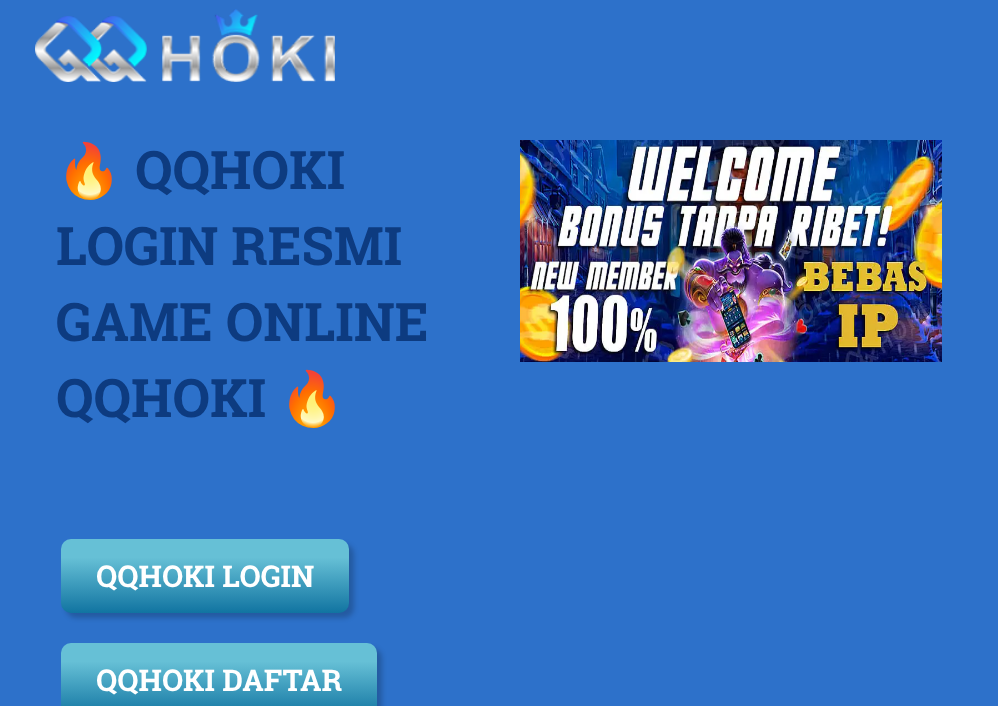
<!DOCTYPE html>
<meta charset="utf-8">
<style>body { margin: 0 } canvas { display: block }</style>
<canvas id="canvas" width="998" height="706"></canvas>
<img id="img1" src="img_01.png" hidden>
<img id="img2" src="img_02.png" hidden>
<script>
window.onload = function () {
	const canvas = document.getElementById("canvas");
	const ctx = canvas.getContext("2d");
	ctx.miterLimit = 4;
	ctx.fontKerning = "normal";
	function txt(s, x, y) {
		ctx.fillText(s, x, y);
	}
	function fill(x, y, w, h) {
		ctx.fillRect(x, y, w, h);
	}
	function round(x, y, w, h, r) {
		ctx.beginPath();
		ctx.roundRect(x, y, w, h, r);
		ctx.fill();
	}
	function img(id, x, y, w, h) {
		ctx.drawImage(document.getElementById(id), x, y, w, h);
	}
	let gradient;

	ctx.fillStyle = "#2D71CA";
	fill(0, 0, 998, 706);
	img("img1", 35, 9, 300, 73);
	ctx.fillStyle = "rgba(0, 0, 0, 0.2)";
	ctx.filter = "blur(2.5px)";
	ctx.beginPath();
	ctx.roundRect(66, 544, 288, 74, 10);
	ctx.fill();
	ctx.filter = "none";
	gradient = ctx.createLinearGradient(205, 539, 205, 613);
	gradient.addColorStop(0.25, "#66C0D6");
	gradient.addColorStop(1, "#1174A1");
	ctx.fillStyle = gradient;
	round(61, 539, 288, 74, 10);
	ctx.fillStyle = "rgba(0, 0, 0, 0.2)";
	ctx.filter = "blur(2.5px)";
	ctx.beginPath();
	ctx.roundRect(66, 648, 316, 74, 10);
	ctx.fill();
	ctx.filter = "none";
	gradient = ctx.createLinearGradient(219, 643, 219, 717);
	gradient.addColorStop(0.25, "#66C0D6");
	gradient.addColorStop(1, "#1174A1");
	ctx.fillStyle = gradient;
	round(61, 643, 316, 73, 10);
	img("img2", 520, 140, 422, 222);
	ctx.font = "bold 53px Noto Color Emoji";
	ctx.fillStyle = "#0D3B80";
	txt("🔥", 56, 189);
	ctx.font = "bold 53px Roboto Slab";
	txt("QQHOKI", 135, 189);
	txt("LOGIN RESMI", 56, 265);
	txt("GAME ONLINE", 56, 341);
	txt("QQHOKI", 56, 417);
	ctx.font = "bold 53px Noto Color Emoji";
	txt("🔥", 279, 417);
	ctx.font = "bold 30px Roboto Slab";
	ctx.fillStyle = "#FFFFFF";
	txt("QQHOKI LOGIN", 96, 587);
	txt("QQHOKI DAFTAR", 96, 691);
};
</script>
